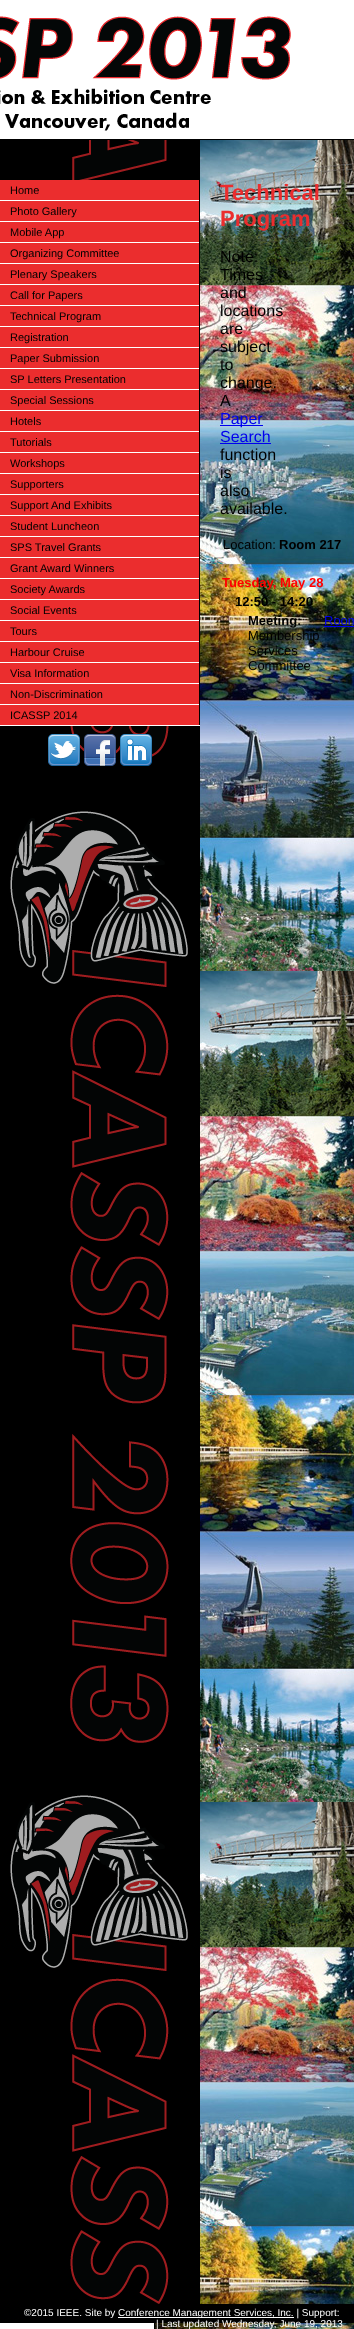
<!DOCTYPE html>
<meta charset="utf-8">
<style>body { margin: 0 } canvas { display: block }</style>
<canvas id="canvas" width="354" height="2329"></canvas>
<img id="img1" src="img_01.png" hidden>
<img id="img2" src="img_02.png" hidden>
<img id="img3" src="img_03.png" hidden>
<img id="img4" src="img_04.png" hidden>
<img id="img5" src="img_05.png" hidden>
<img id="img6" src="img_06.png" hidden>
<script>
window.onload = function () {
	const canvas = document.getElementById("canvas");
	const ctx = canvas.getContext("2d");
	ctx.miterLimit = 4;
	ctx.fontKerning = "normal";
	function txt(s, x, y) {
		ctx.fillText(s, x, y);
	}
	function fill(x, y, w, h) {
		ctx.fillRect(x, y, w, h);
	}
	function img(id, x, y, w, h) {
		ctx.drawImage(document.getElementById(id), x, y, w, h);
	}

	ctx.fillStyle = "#FFFFFF";
	fill(0, 0, 354, 2329);
	img("img1", 154, 140, 200, 2189);
	img("img2", 0, 140, 200, 2164);
	img("img3", 0, 16, 291, 115);
	ctx.fillStyle = "#000000";
	fill(0, 139, 354, 1);
	ctx.fillStyle = "#FFFFFF";
	fill(0, 725, 200, 1);
	ctx.fillStyle = "#EB2D2E";
	fill(0, 180, 199, 20);
	fill(0, 201, 199, 20);
	ctx.fillStyle = "#FFFFFF";
	fill(0, 200, 199, 1);
	ctx.fillStyle = "#EB2D2E";
	fill(0, 222, 199, 20);
	ctx.fillStyle = "#FFFFFF";
	fill(0, 221, 199, 1);
	ctx.fillStyle = "#EB2D2E";
	fill(0, 243, 199, 20);
	ctx.fillStyle = "#FFFFFF";
	fill(0, 242, 199, 1);
	ctx.fillStyle = "#EB2D2E";
	fill(0, 264, 199, 20);
	ctx.fillStyle = "#FFFFFF";
	fill(0, 263, 199, 1);
	ctx.fillStyle = "#EB2D2E";
	fill(0, 285, 199, 20);
	ctx.fillStyle = "#FFFFFF";
	fill(0, 284, 199, 1);
	ctx.fillStyle = "#EB2D2E";
	fill(0, 306, 199, 20);
	ctx.fillStyle = "#FFFFFF";
	fill(0, 305, 199, 1);
	ctx.fillStyle = "#EB2D2E";
	fill(0, 327, 199, 20);
	ctx.fillStyle = "#FFFFFF";
	fill(0, 326, 199, 1);
	ctx.fillStyle = "#EB2D2E";
	fill(0, 348, 199, 20);
	ctx.fillStyle = "#FFFFFF";
	fill(0, 347, 199, 1);
	ctx.fillStyle = "#EB2D2E";
	fill(0, 369, 199, 20);
	ctx.fillStyle = "#FFFFFF";
	fill(0, 368, 199, 1);
	ctx.fillStyle = "#EB2D2E";
	fill(0, 390, 199, 20);
	ctx.fillStyle = "#FFFFFF";
	fill(0, 389, 199, 1);
	ctx.fillStyle = "#EB2D2E";
	fill(0, 411, 199, 20);
	ctx.fillStyle = "#FFFFFF";
	fill(0, 410, 199, 1);
	ctx.fillStyle = "#EB2D2E";
	fill(0, 432, 199, 20);
	ctx.fillStyle = "#FFFFFF";
	fill(0, 431, 199, 1);
	ctx.fillStyle = "#EB2D2E";
	fill(0, 453, 199, 20);
	ctx.fillStyle = "#FFFFFF";
	fill(0, 452, 199, 1);
	ctx.fillStyle = "#EB2D2E";
	fill(0, 474, 199, 20);
	ctx.fillStyle = "#FFFFFF";
	fill(0, 473, 199, 1);
	ctx.fillStyle = "#EB2D2E";
	fill(0, 495, 199, 20);
	ctx.fillStyle = "#FFFFFF";
	fill(0, 494, 199, 1);
	ctx.fillStyle = "#EB2D2E";
	fill(0, 516, 199, 20);
	ctx.fillStyle = "#FFFFFF";
	fill(0, 515, 199, 1);
	ctx.fillStyle = "#EB2D2E";
	fill(0, 537, 199, 20);
	ctx.fillStyle = "#FFFFFF";
	fill(0, 536, 199, 1);
	ctx.fillStyle = "#EB2D2E";
	fill(0, 558, 199, 20);
	ctx.fillStyle = "#FFFFFF";
	fill(0, 557, 199, 1);
	ctx.fillStyle = "#EB2D2E";
	fill(0, 579, 199, 20);
	ctx.fillStyle = "#FFFFFF";
	fill(0, 578, 199, 1);
	ctx.fillStyle = "#EB2D2E";
	fill(0, 600, 199, 20);
	ctx.fillStyle = "#FFFFFF";
	fill(0, 599, 199, 1);
	ctx.fillStyle = "#EB2D2E";
	fill(0, 621, 199, 20);
	ctx.fillStyle = "#FFFFFF";
	fill(0, 620, 199, 1);
	ctx.fillStyle = "#EB2D2E";
	fill(0, 642, 199, 20);
	ctx.fillStyle = "#FFFFFF";
	fill(0, 641, 199, 1);
	ctx.fillStyle = "#EB2D2E";
	fill(0, 663, 199, 20);
	ctx.fillStyle = "#FFFFFF";
	fill(0, 662, 199, 1);
	ctx.fillStyle = "#EB2D2E";
	fill(0, 684, 199, 20);
	ctx.fillStyle = "#FFFFFF";
	fill(0, 683, 199, 1);
	ctx.fillStyle = "#EB2D2E";
	fill(0, 705, 199, 20);
	ctx.fillStyle = "#FFFFFF";
	fill(0, 704, 199, 1);
	img("img4", 48, 734, 32, 32);
	img("img5", 84, 734, 32, 32);
	img("img6", 120, 734, 32, 32);
	ctx.fillStyle = "#0000EE";
	fill(220, 425, 43, 1);
	fill(220, 443, 51, 1);
	fill(324, 626, 30, 1);
	ctx.fillStyle = "#000000";
	fill(0, 2304, 354, 19);
	ctx.fillStyle = "#FFFFFF";
	fill(118, 2317, 176, 1);
	ctx.font = "11px Liberation Sans";
	ctx.fillStyle = "#000000";
	txt("Home", 10, 194);
	txt("Photo Gallery", 10, 215);
	txt("Mobile App", 10, 236);
	txt("Organizing Committee", 10, 257);
	txt("Plenary Speakers", 10, 278);
	txt("Call for Papers", 10, 299);
	txt("Technical Program", 10, 320);
	txt("Registration", 10, 341);
	txt("Paper Submission", 10, 362);
	txt("SP Letters Presentation", 10, 383);
	txt("Special Sessions", 10, 404);
	txt("Hotels", 10, 425);
	txt("Tutorials", 10, 446);
	txt("Workshops", 10, 467);
	txt("Supporters", 10, 488);
	txt("Support And Exhibits", 10, 509);
	txt("Student Luncheon", 10, 530);
	txt("SPS Travel Grants", 10, 551);
	txt("Grant Award Winners", 10, 572);
	txt("Society Awards", 10, 593);
	txt("Social Events", 10, 614);
	txt("Tours", 10, 635);
	txt("Harbour Cruise", 10, 656);
	txt("Visa Information", 10, 677);
	txt("Non-Discrimination", 10, 698);
	txt("ICASSP 2014", 10, 719);
	ctx.font = "bold 22px Liberation Sans";
	ctx.fillStyle = "#EB2D2E";
	txt("Technical", 220, 200);
	txt("Program", 220, 226);
	ctx.font = "16px Liberation Sans";
	ctx.fillStyle = "#000000";
	txt("Note:", 220, 262);
	txt("Times", 220, 280);
	txt("and", 220, 298);
	txt("locations", 220, 316);
	txt("are", 220, 334);
	txt("subject", 220, 352);
	txt("to", 220, 370);
	txt("change.", 220, 388);
	txt("A", 220, 406);
	ctx.fillStyle = "#0000EE";
	txt("Paper", 220, 424);
	txt("Search", 220, 442);
	ctx.fillStyle = "#000000";
	txt("function", 220, 460);
	txt("is", 220, 478);
	txt("also", 220, 496);
	txt("available.", 220, 514);
	ctx.font = "13px Liberation Sans";
	txt("Location:", 223, 549);
	ctx.font = "bold 13px Liberation Sans";
	txt("Room 217", 279, 549);
	ctx.fillStyle = "#FF0000";
	txt("Tuesday, May 28", 222, 587);
	ctx.fillStyle = "#000000";
	txt("12:50 - 14:20", 235, 606);
	txt("Meeting:", 248, 625);
	ctx.font = "13px Liberation Sans";
	txt("Membership", 248, 640);
	txt("Services", 248, 655);
	txt("Committee", 248, 670);
	ctx.fillStyle = "#0000EE";
	txt("Room", 324, 625);
	ctx.font = "10px Liberation Sans";
	ctx.fillStyle = "#FFFFFF";
	txt("©2015 IEEE. Site by", 24, 2316);
	txt("Conference Management Services, Inc. | Support:", 118, 2316);
	txt("| Last updated Wednesday, June 19, 2013", 156, 2327);
};
</script>
